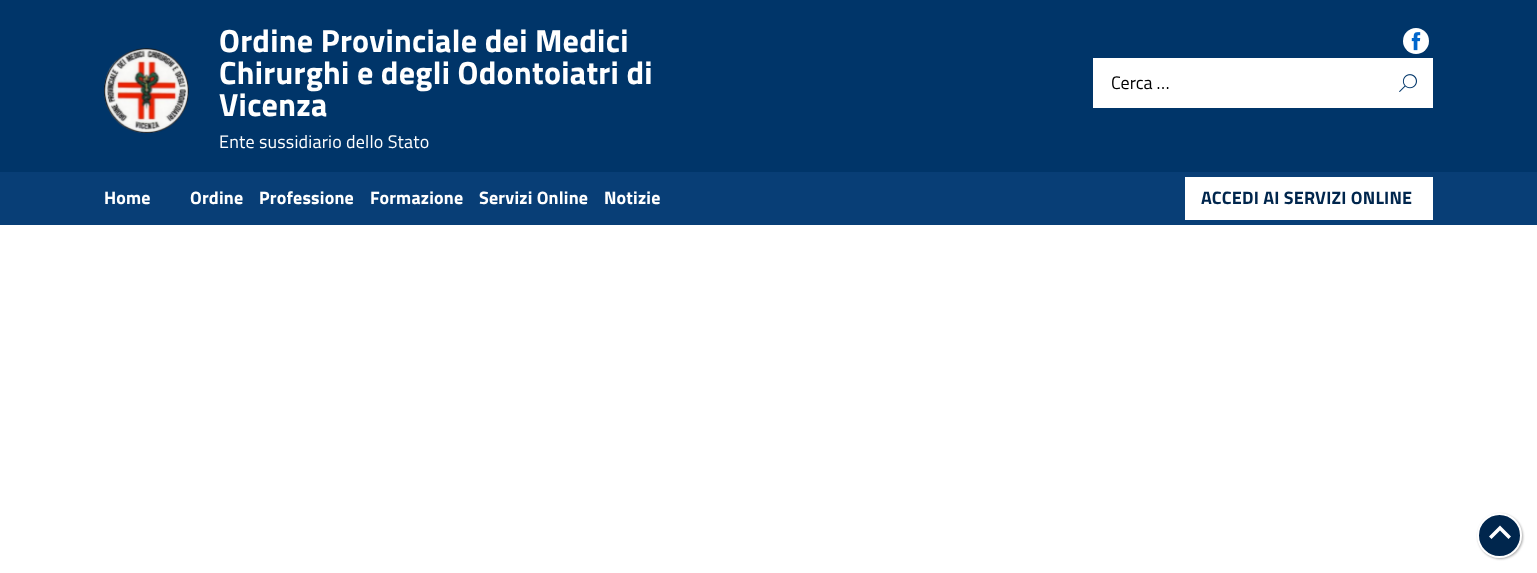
<!DOCTYPE html>
<meta charset="utf-8">
<style>body { margin: 0 } canvas { display: block }</style>
<canvas id="canvas" width="1537" height="573"></canvas>
<img id="img1" src="img_01.png" hidden>
<img id="img2" src="img_02.png" hidden>
<img id="img3" src="img_03.png" hidden>
<script>
window.onload = function () {
	const canvas = document.getElementById("canvas");
	const ctx = canvas.getContext("2d");
	ctx.miterLimit = 4;
	ctx.fontKerning = "normal";
	function txt(s, x, y) {
		ctx.fillText(s, x, y);
	}
	function fill(x, y, w, h) {
		ctx.fillRect(x, y, w, h);
	}
	function img(id, x, y, w, h) {
		ctx.drawImage(document.getElementById(id), x, y, w, h);
	}

	ctx.fillStyle = "#FFFFFF";
	fill(0, 0, 1537, 573);
	ctx.fillStyle = "#003569";
	fill(0, 0, 1537, 172);
	img("img1", 104, 48, 85, 85);
	ctx.fillStyle = "#FFFFFF";
	ctx.beginPath();
	ctx.arc(1416, 41, 13, 0, Math.PI * 2);
	ctx.fill();
	img("img2", 1411, 32, 10, 19);
	fill(1093, 58, 340, 50);
	img("img3", 1399, 74, 18, 18);
	ctx.fillStyle = "#083E76";
	fill(0, 172, 1537, 53);
	ctx.fillStyle = "#FFFFFF";
	fill(1185, 177, 248, 43);
	ctx.fillStyle = "#AAAAAA";
	ctx.filter = "blur(1px)";
	ctx.beginPath();
	ctx.roundRect(1478, 514, 45, 45, 22.5);
	ctx.fill();
	ctx.filter = "none";
	ctx.fillStyle = "#00264D";
	ctx.beginPath();
	ctx.arc(1499.5, 535.5, 21.5, 0, Math.PI * 2);
	ctx.fill();
	ctx.strokeStyle = "#FFFFFF";
	ctx.lineWidth = 2;
	ctx.stroke();
	ctx.fillStyle = "#FFFFFF";
	ctx.beginPath();
	ctx.moveTo(1508.5, 539);
	ctx.lineTo(1511, 536.5);
	ctx.lineTo(1500, 525.5);
	ctx.lineTo(1489, 536.5);
	ctx.lineTo(1491.5, 539);
	ctx.lineTo(1500, 530.5);
	ctx.closePath();
	ctx.fill();
	ctx.letterSpacing = "0.3px";
	ctx.font = "bold 32px Titillium Web";
	txt("Ordine Provinciale dei Medici", 219, 52);
	txt("Chirurghi e degli Odontoiatri di", 219, 84);
	txt("Vicenza", 219, 116);
	ctx.letterSpacing = "0.2px";
	ctx.font = "18px Titillium Web";
	txt("Ente sussidiario dello Stato", 219, 148);
	ctx.letterSpacing = "0px";
	ctx.fillStyle = "#000000";
	txt("Cerca …", 1111, 89);
	ctx.letterSpacing = "0.2px";
	ctx.font = "bold 18px Titillium Web";
	ctx.fillStyle = "#FFFFFF";
	txt("Home", 104, 204);
	txt("Ordine", 190, 204);
	txt("Professione", 259, 204);
	txt("Formazione", 370, 204);
	txt("Servizi Online", 479, 204);
	txt("Notizie", 604, 204);
	ctx.fillStyle = "#00264D";
	txt("ACCEDI AI SERVIZI ONLINE", 1201, 204);
};
</script>
